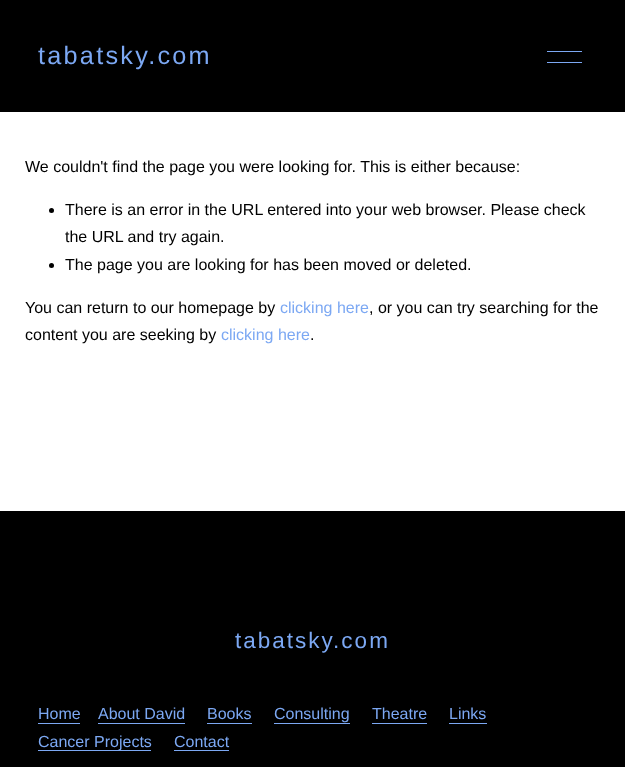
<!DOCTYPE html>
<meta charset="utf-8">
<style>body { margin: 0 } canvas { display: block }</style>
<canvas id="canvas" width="625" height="767"></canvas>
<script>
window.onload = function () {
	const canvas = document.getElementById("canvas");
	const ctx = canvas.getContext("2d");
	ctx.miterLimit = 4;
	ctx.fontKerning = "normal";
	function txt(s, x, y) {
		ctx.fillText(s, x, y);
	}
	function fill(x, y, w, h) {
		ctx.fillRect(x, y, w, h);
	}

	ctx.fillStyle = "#FFFFFF";
	fill(0, 0, 625, 767);
	ctx.fillStyle = "#000000";
	fill(0, 0, 625, 112);
	ctx.fillStyle = "#7CA8F3";
	fill(547, 51, 35, 1);
	fill(547, 62, 35, 1);
	ctx.fillStyle = "#000000";
	ctx.beginPath();
	ctx.arc(51.5, 210.5, 2.5, 0, Math.PI * 2);
	ctx.fill();
	ctx.beginPath();
	ctx.arc(51.5, 265.5, 2.5, 0, Math.PI * 2);
	ctx.fill();
	fill(0, 511, 625, 256);
	ctx.fillStyle = "#7CA8F3";
	fill(38, 723, 42, 1);
	fill(98, 723, 87, 1);
	fill(207, 723, 45, 1);
	fill(274, 723, 76, 1);
	fill(372, 723, 55, 1);
	fill(449, 723, 38, 1);
	fill(38, 750, 113, 1);
	fill(174, 750, 55, 1);
	ctx.letterSpacing = "2.25px";
	ctx.font = "25.25px Liberation Sans";
	txt("tabatsky.com", 38, 64);
	ctx.letterSpacing = "0px";
	ctx.font = "16px Liberation Sans";
	ctx.fillStyle = "#000000";
	txt("We couldn't find the page you were looking for. This is either because:", 25, 172);
	txt("There is an error in the URL entered into your web browser. Please check", 65, 215);
	txt("the URL and try again.", 65, 242);
	txt("The page you are looking for has been moved or deleted.", 65, 270);
	txt("You can return to our homepage by", 25, 313);
	ctx.fillStyle = "#7CA8F3";
	txt("clicking here", 280, 313);
	ctx.fillStyle = "#000000";
	txt(", or you can try searching for the", 369, 313);
	txt("content you are seeking by", 25, 340);
	ctx.fillStyle = "#7CA8F3";
	txt("clicking here", 221, 340);
	ctx.fillStyle = "#000000";
	txt(".", 310, 340);
	ctx.letterSpacing = "2px";
	ctx.font = "22.5px Liberation Sans";
	ctx.fillStyle = "#7CA8F3";
	txt("tabatsky.com", 235, 648);
	ctx.letterSpacing = "0px";
	ctx.font = "16px Liberation Sans";
	txt("Home", 38, 719);
	txt("About David", 98, 719);
	txt("Books", 207, 719);
	txt("Consulting", 274, 719);
	txt("Theatre", 372, 719);
	txt("Links", 449, 719);
	txt("Cancer Projects", 38, 747);
	txt("Contact", 174, 747);
};
</script>
